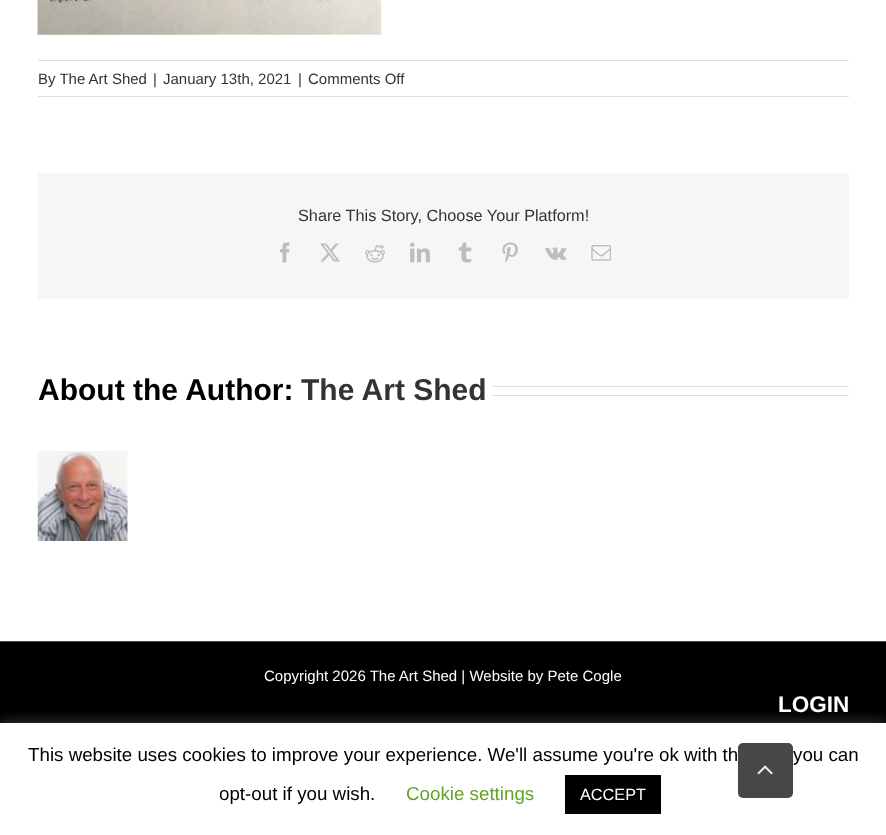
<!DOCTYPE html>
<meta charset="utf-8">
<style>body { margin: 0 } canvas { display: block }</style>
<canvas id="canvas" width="886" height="835"></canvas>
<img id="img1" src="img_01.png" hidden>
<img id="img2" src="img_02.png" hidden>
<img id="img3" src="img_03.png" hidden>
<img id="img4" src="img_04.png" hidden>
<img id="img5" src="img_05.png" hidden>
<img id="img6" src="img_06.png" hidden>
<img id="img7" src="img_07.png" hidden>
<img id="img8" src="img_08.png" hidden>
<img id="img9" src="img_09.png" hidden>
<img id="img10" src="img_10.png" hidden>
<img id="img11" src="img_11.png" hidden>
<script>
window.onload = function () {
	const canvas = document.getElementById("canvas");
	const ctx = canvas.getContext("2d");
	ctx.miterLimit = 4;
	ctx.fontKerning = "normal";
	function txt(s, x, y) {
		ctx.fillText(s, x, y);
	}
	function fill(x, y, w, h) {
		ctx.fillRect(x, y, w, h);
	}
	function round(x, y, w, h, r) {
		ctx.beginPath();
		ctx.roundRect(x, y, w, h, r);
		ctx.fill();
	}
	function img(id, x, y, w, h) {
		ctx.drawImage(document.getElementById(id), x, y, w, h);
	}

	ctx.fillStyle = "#FFFFFF";
	fill(0, 0, 886, 835);
	img("img1", 37, 0, 345, 35);
	ctx.fillStyle = "#E0DEDE";
	fill(38, 60, 811, 1);
	fill(38, 96, 811, 1);
	ctx.fillStyle = "#F6F6F6";
	fill(38, 173, 811, 126);
	img("img2", 280, 242, 10, 21);
	img("img3", 320, 243, 20, 19);
	img("img4", 365, 245, 20, 18);
	img("img5", 410, 242, 20, 21);
	img("img6", 458, 242, 14, 21);
	img("img7", 502, 242, 16, 21);
	img("img8", 545, 247, 22, 13);
	img("img9", 591, 245, 20, 16);
	ctx.fillStyle = "#E0DEDE";
	fill(493, 386, 356, 1);
	fill(493, 395, 356, 1);
	img("img10", 37, 451, 91, 90);
	ctx.fillStyle = "#000000";
	fill(0, 642, 886, 81);
	ctx.fillStyle = "#4B4C4D";
	fill(0, 641, 886, 1);
	ctx.fillStyle = "rgba(172, 171, 171, 0.3)";
	ctx.filter = "blur(6px)";
	ctx.beginPath();
	ctx.rect(0, 721, 886, 113);
	ctx.fill();
	ctx.filter = "none";
	ctx.fillStyle = "#FFFFFF";
	fill(0, 723, 886, 112);
	ctx.fillStyle = "rgba(51, 51, 51, 0.9)";
	round(738, 743, 55, 55, 5);
	img("img11", 757, 765, 16, 10);
	ctx.fillStyle = "#000000";
	fill(565, 775, 96, 39);
	ctx.font = "15px Liberation Sans";
	ctx.fillStyle = "#333333";
	txt("By The Art Shed", 38, 84);
	txt("|", 153, 84);
	txt("January 13th, 2021", 163, 84);
	txt("|", 298, 84);
	txt("Comments Off", 308, 84);
	ctx.font = "16.25px Liberation Sans";
	txt("Share This Story, Choose Your Platform!", 298, 221);
	ctx.font = "bold 30px Liberation Sans";
	ctx.fillStyle = "#000000";
	txt("About the Author:", 38, 400);
	ctx.fillStyle = "#333333";
	txt("The Art Shed", 301, 400);
	ctx.font = "15px Liberation Sans";
	ctx.fillStyle = "#FFFFFF";
	txt("Copyright 2026 The Art Shed | Website by Pete Cogle", 264, 681);
	ctx.font = "bold 22.5px Liberation Sans";
	txt("LOGIN", 778, 712);
	ctx.font = "18.75px Liberation Sans";
	ctx.fillStyle = "#000000";
	txt("This website uses cookies to improve your experience. We'll assume you're ok with th", 28, 761);
	txt("you can", 793, 761);
	txt("opt-out if you wish.", 219, 800);
	ctx.fillStyle = "#62A329";
	txt("Cookie settings", 406, 800);
	ctx.font = "16.25px Liberation Sans";
	ctx.fillStyle = "#FFFFFF";
	txt("ACCEPT", 580, 800);
};
</script>
